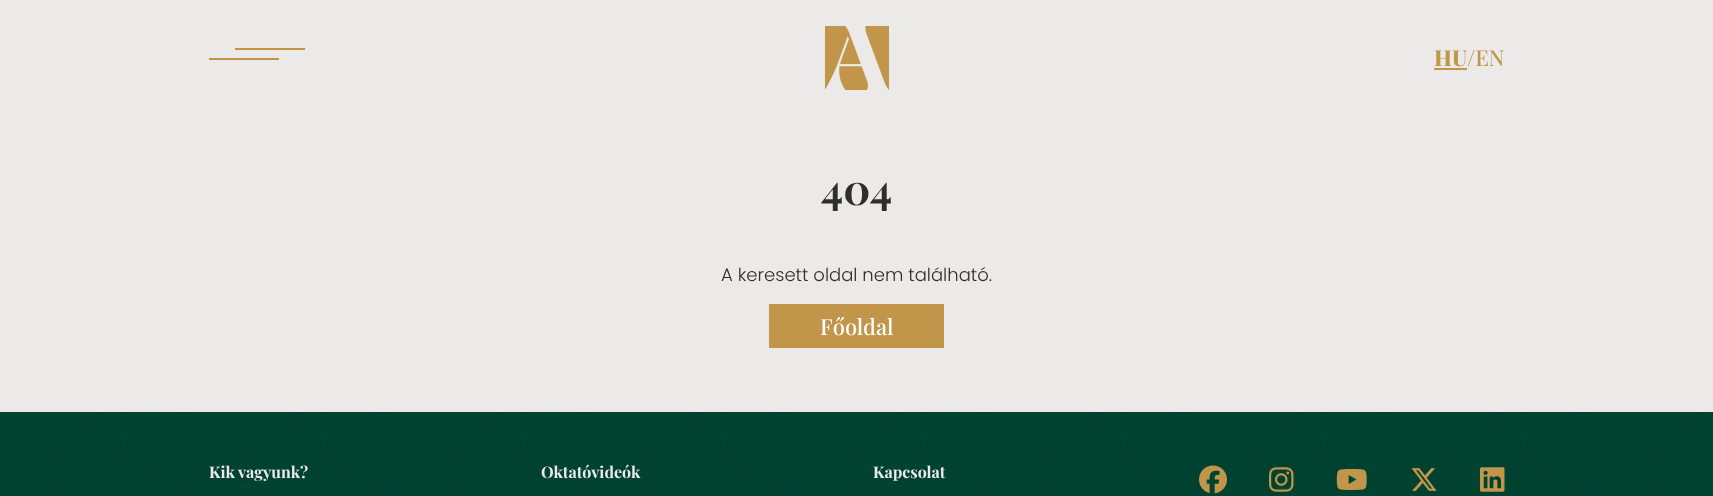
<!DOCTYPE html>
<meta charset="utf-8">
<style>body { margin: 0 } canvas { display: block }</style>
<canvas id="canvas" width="1713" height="496"></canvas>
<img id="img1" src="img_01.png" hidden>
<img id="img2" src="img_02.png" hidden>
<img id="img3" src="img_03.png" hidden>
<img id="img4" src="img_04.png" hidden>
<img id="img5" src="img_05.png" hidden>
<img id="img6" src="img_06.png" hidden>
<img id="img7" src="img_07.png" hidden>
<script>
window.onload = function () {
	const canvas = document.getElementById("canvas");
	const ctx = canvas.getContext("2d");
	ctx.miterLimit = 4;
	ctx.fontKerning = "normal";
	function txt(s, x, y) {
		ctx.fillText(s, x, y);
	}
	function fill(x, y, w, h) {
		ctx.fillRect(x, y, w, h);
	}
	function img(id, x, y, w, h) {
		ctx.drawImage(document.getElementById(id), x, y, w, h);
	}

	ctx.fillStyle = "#ECE9E9";
	fill(0, 0, 1713, 496);
	ctx.fillStyle = "#C1964A";
	fill(235, 48, 70, 2);
	fill(209, 58, 70, 2);
	img("img1", 825, 26, 64, 64);
	fill(1434, 68, 33, 2);
	fill(769, 304, 175, 44);
	img("img2", 0, 412, 1713, 84);
	img("img3", 1199, 465, 28, 29);
	img("img4", 1269, 467, 25, 25);
	img("img5", 1336, 469, 31, 21);
	img("img6", 1411, 468, 26, 23);
	img("img7", 1480, 467, 25, 25);
	ctx.font = "800 22px Playfair Display";
	txt("HU", 1434, 66);
	ctx.font = "500 22px Playfair Display";
	txt("/EN", 1467, 66);
	ctx.font = "bold 42px Playfair Display";
	ctx.fillStyle = "#2E2E2E";
	txt("404", 821, 205);
	ctx.font = "300 18px Poppins";
	txt("A keresett oldal nem található.", 721, 281);
	ctx.font = "500 22px Playfair Display";
	ctx.fillStyle = "#FFFFFF";
	txt("Főoldal", 820, 335);
	ctx.font = "bold 16px Playfair Display";
	ctx.fillStyle = "#ECE9E9";
	txt("Kik vagyunk?", 209, 478);
	txt("Oktatóvideók", 541, 478);
	txt("Kapcsolat", 873, 478);
};
</script>
